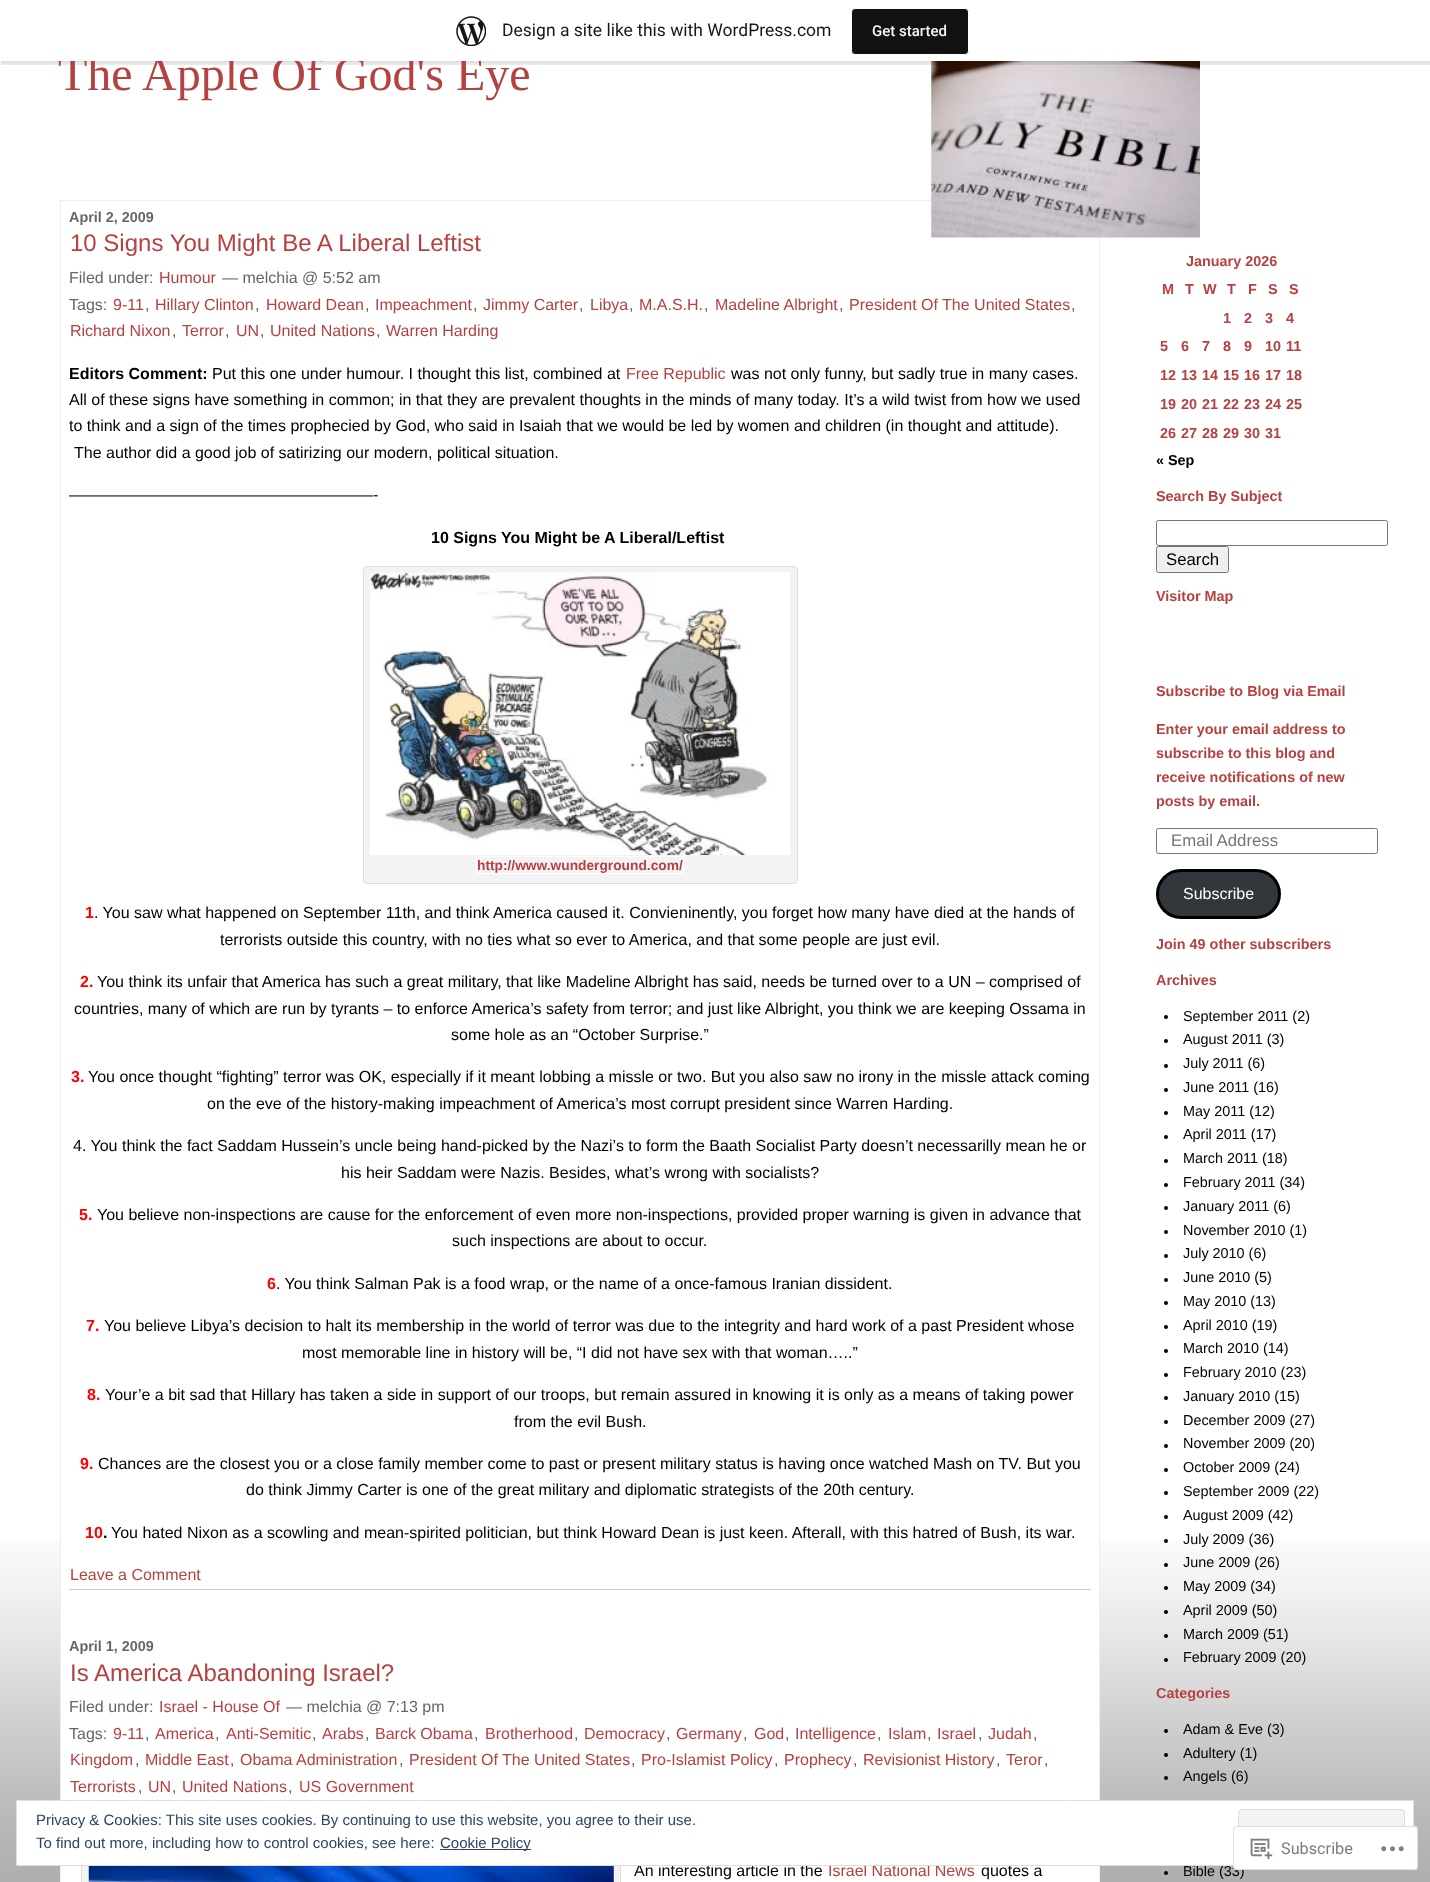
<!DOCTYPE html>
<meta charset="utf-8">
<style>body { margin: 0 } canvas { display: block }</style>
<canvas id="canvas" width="1430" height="1882"></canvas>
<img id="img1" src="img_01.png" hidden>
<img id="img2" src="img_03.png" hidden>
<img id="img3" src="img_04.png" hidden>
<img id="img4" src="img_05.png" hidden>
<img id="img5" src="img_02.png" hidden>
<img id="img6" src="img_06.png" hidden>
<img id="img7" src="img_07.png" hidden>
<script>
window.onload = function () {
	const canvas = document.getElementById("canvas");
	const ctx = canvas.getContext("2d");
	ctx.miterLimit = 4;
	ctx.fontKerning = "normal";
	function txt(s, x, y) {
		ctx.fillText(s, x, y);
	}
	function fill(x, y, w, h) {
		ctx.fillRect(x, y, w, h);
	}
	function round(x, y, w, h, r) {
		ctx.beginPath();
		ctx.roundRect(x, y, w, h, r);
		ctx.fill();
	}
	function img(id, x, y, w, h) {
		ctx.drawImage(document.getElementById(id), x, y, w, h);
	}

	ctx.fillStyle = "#FFFFFF";
	fill(0, 0, 1430, 1882);
	img("img1", 0, 1541, 1430, 341);
	fill(61, 1541, 1038, 341);
	ctx.strokeStyle = "#EEEEEE";
	ctx.strokeRect(60.5, 200.5, 1039, 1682);
	img("img2", 931, 61, 269, 177);
	ctx.fillStyle = "rgba(0, 0, 0, 0.05)";
	ctx.filter = "blur(1px)";
	ctx.beginPath();
	ctx.rect(0, 1, 1430, 62);
	ctx.fill();
	ctx.filter = "none";
	ctx.fillStyle = "rgba(0, 0, 0, 0.08)";
	ctx.beginPath();
	ctx.moveTo(1, 61);
	ctx.lineTo(1, 65);
	ctx.lineTo(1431, 65);
	ctx.lineTo(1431, 4);
	ctx.lineTo(1430, 4);
	ctx.lineTo(1430, 61);
	ctx.closePath();
	ctx.fill();
	ctx.fillStyle = "#F3F3F3";
	ctx.beginPath();
	ctx.roundRect(363.5, 566.5, 434, 317, 3.5);
	ctx.fill();
	ctx.strokeStyle = "#DDDDDD";
	ctx.stroke();
	img("img3", 370, 572, 420, 283);
	ctx.strokeStyle = "#FFFFFF";
	ctx.strokeRect(476.5, 856.5, 207, 17);
	ctx.fillStyle = "#CCCCCC";
	fill(69, 1589, 1022, 1);
	ctx.fillStyle = "#F3F3F3";
	fill(82, 1866, 538, 16);
	ctx.strokeStyle = "#DDDDDD";
	ctx.strokeRect(81.5, 1828.5, 539, 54);
	img("img4", 88, 1866, 526, 16);
	ctx.beginPath();
	ctx.roundRect(1156.5, 520.5, 231, 25, 2);
	ctx.strokeStyle = "#767676";
	ctx.stroke();
	ctx.fillStyle = "#EFEFEF";
	ctx.beginPath();
	ctx.roundRect(1156.5, 546.5, 72, 26, 2);
	ctx.fill();
	ctx.stroke();
	ctx.beginPath();
	ctx.roundRect(1156.5, 828.5, 221, 25, 2);
	ctx.stroke();
	ctx.fillStyle = "#32373C";
	ctx.beginPath();
	ctx.roundRect(1157.5, 870.5, 122, 47, 23.5);
	ctx.fill();
	ctx.strokeStyle = "#000000";
	ctx.lineWidth = 3;
	ctx.stroke();
	ctx.fillStyle = "#000000";
	ctx.beginPath();
	ctx.arc(1166, 1017, 2, 0, Math.PI * 2);
	ctx.fill();
	ctx.beginPath();
	ctx.arc(1166, 1041, 2, 0, Math.PI * 2);
	ctx.fill();
	ctx.beginPath();
	ctx.arc(1166, 1066, 2, 0, Math.PI * 2);
	ctx.fill();
	ctx.beginPath();
	ctx.arc(1166, 1090, 2, 0, Math.PI * 2);
	ctx.fill();
	ctx.beginPath();
	ctx.arc(1166, 1113, 2, 0, Math.PI * 2);
	ctx.fill();
	ctx.beginPath();
	ctx.arc(1166, 1137, 2, 0, Math.PI * 2);
	ctx.fill();
	ctx.beginPath();
	ctx.arc(1166, 1161, 2, 0, Math.PI * 2);
	ctx.fill();
	ctx.beginPath();
	ctx.arc(1166, 1185, 2, 0, Math.PI * 2);
	ctx.fill();
	ctx.beginPath();
	ctx.arc(1166, 1208, 2, 0, Math.PI * 2);
	ctx.fill();
	ctx.beginPath();
	ctx.arc(1166, 1232, 2, 0, Math.PI * 2);
	ctx.fill();
	ctx.beginPath();
	ctx.arc(1166, 1256, 2, 0, Math.PI * 2);
	ctx.fill();
	ctx.beginPath();
	ctx.arc(1166, 1280, 2, 0, Math.PI * 2);
	ctx.fill();
	ctx.beginPath();
	ctx.arc(1166, 1303, 2, 0, Math.PI * 2);
	ctx.fill();
	ctx.beginPath();
	ctx.arc(1166, 1327, 2, 0, Math.PI * 2);
	ctx.fill();
	ctx.beginPath();
	ctx.arc(1166, 1351, 2, 0, Math.PI * 2);
	ctx.fill();
	ctx.beginPath();
	ctx.arc(1166, 1375, 2, 0, Math.PI * 2);
	ctx.fill();
	ctx.beginPath();
	ctx.arc(1166, 1398, 2, 0, Math.PI * 2);
	ctx.fill();
	ctx.beginPath();
	ctx.arc(1166, 1422, 2, 0, Math.PI * 2);
	ctx.fill();
	ctx.beginPath();
	ctx.arc(1166, 1446, 2, 0, Math.PI * 2);
	ctx.fill();
	ctx.beginPath();
	ctx.arc(1166, 1470, 2, 0, Math.PI * 2);
	ctx.fill();
	ctx.beginPath();
	ctx.arc(1166, 1493, 2, 0, Math.PI * 2);
	ctx.fill();
	ctx.beginPath();
	ctx.arc(1166, 1517, 2, 0, Math.PI * 2);
	ctx.fill();
	ctx.beginPath();
	ctx.arc(1166, 1541, 2, 0, Math.PI * 2);
	ctx.fill();
	ctx.beginPath();
	ctx.arc(1166, 1565, 2, 0, Math.PI * 2);
	ctx.fill();
	ctx.beginPath();
	ctx.arc(1166, 1588, 2, 0, Math.PI * 2);
	ctx.fill();
	ctx.beginPath();
	ctx.arc(1166, 1612, 2, 0, Math.PI * 2);
	ctx.fill();
	ctx.beginPath();
	ctx.arc(1166, 1636, 2, 0, Math.PI * 2);
	ctx.fill();
	ctx.beginPath();
	ctx.arc(1166, 1660, 2, 0, Math.PI * 2);
	ctx.fill();
	ctx.beginPath();
	ctx.arc(1166, 1731, 2, 0, Math.PI * 2);
	ctx.fill();
	ctx.beginPath();
	ctx.arc(1166, 1755, 2, 0, Math.PI * 2);
	ctx.fill();
	ctx.beginPath();
	ctx.arc(1166, 1778, 2, 0, Math.PI * 2);
	ctx.fill();
	ctx.beginPath();
	ctx.arc(1166, 1873, 2, 0, Math.PI * 2);
	ctx.fill();
	ctx.font = "48px Liberation Serif";
	ctx.fillStyle = "#B54141";
	txt("The Apple Of God's Eye", 58, 90);
	ctx.fillStyle = "#FFFFFF";
	fill(0, 0, 1430, 61);
	img("img5", 456, 16, 30, 30);
	ctx.font = "17.5px Roboto";
	ctx.fillStyle = "#171717";
	txt("Design a site like this with WordPress.com", 502, 36);
	ctx.fillStyle = "#111111";
	ctx.beginPath();
	ctx.roundRect(851.5, 8.5, 117, 46, 3.5);
	ctx.fill();
	ctx.strokeStyle = "#FFFFFF";
	ctx.lineWidth = 1;
	ctx.stroke();
	ctx.font = "500 15px Roboto";
	ctx.fillStyle = "#F6F7F7";
	txt("Get started", 872, 36);
	ctx.font = "bold 14.4px Liberation Sans";
	ctx.fillStyle = "#666666";
	txt("April 2, 2009", 69, 222);
	ctx.font = "24px Liberation Sans";
	ctx.fillStyle = "#B54141";
	txt("10 Signs You Might Be A Liberal Leftist", 70, 251);
	ctx.font = "16px Liberation Sans";
	ctx.fillStyle = "#666666";
	txt("Filed under:", 69, 283);
	ctx.fillStyle = "#B54141";
	txt("Humour", 159, 283);
	ctx.fillStyle = "#666666";
	txt("— melchia @ 5:52 am", 222, 283);
	txt("Tags:", 69, 310);
	ctx.fillStyle = "#B54141";
	txt("9-11", 113, 310);
	ctx.fillStyle = "#666666";
	txt(",", 145, 310);
	ctx.fillStyle = "#B54141";
	txt("Hillary Clinton", 155, 310);
	ctx.fillStyle = "#666666";
	txt(",", 255, 310);
	ctx.fillStyle = "#B54141";
	txt("Howard Dean", 266, 310);
	ctx.fillStyle = "#666666";
	txt(",", 365, 310);
	ctx.fillStyle = "#B54141";
	txt("Impeachment", 375, 310);
	ctx.fillStyle = "#666666";
	txt(",", 473, 310);
	ctx.fillStyle = "#B54141";
	txt("Jimmy Carter", 483, 310);
	ctx.fillStyle = "#666666";
	txt(",", 579, 310);
	ctx.fillStyle = "#B54141";
	txt("Libya", 590, 310);
	ctx.fillStyle = "#666666";
	txt(",", 629, 310);
	ctx.fillStyle = "#B54141";
	txt("M.A.S.H.", 639, 310);
	ctx.fillStyle = "#666666";
	txt(",", 704, 310);
	ctx.fillStyle = "#B54141";
	txt("Madeline Albright", 715, 310);
	ctx.fillStyle = "#666666";
	txt(",", 839, 310);
	ctx.fillStyle = "#B54141";
	txt("President Of The United States", 849, 310);
	ctx.fillStyle = "#666666";
	txt(",", 1071, 310);
	ctx.fillStyle = "#B54141";
	txt("Richard Nixon", 70, 336);
	ctx.fillStyle = "#666666";
	txt(",", 172, 336);
	ctx.fillStyle = "#B54141";
	txt("Terror", 182, 336);
	ctx.fillStyle = "#666666";
	txt(",", 225, 336);
	ctx.fillStyle = "#B54141";
	txt("UN", 236, 336);
	ctx.fillStyle = "#666666";
	txt(",", 260, 336);
	ctx.fillStyle = "#B54141";
	txt("United Nations", 270, 336);
	ctx.fillStyle = "#666666";
	txt(",", 376, 336);
	ctx.fillStyle = "#B54141";
	txt("Warren Harding", 386, 336);
	ctx.font = "bold 16px Liberation Sans";
	ctx.fillStyle = "#000000";
	txt("Editors Comment:", 69, 379);
	ctx.font = "16px Liberation Sans";
	txt("Put this one under humour. I thought this list, combined at", 212, 379);
	ctx.fillStyle = "#B54141";
	txt("Free Republic", 626, 379);
	ctx.fillStyle = "#000000";
	txt("was not only funny, but sadly true in many cases.", 731, 379);
	txt("All of these signs have something in common; in that they are prevalent thoughts in the minds of many today. It’s a wild twist from how we used", 69, 405);
	txt("to think and a sign of the times prophecied by God, who said in Isaiah that we would be led by women and children (in thought and attitude).", 69, 431);
	txt("The author did a good job of satirizing our modern, political situation.", 74, 458);
	txt("———————————————————-", 69, 500);
	ctx.font = "bold 16px Liberation Sans";
	txt("10 Signs You Might be A Liberal/Leftist", 431, 543);
	ctx.font = "bold 13.75px Liberation Sans";
	ctx.fillStyle = "#B54141";
	txt("http://www.wunderground.com/", 477, 870);
	ctx.font = "bold 16px Liberation Sans";
	ctx.fillStyle = "#FF0000";
	txt("1", 85, 918);
	ctx.font = "16px Liberation Sans";
	ctx.fillStyle = "#000000";
	txt(". You saw what happened on September 11th, and think America caused it. Convieninently, you forget how many have died at the hands of", 94, 918);
	txt("terrorists outside this country, with no ties what so ever to America, and that some people are just evil.", 220, 945);
	ctx.font = "bold 16px Liberation Sans";
	ctx.fillStyle = "#FF0000";
	txt("2.", 80, 987);
	ctx.font = "16px Liberation Sans";
	ctx.fillStyle = "#000000";
	txt("You think its unfair that America has such a great military, that like Madeline Albright has said, needs be turned over to a UN – comprised of", 97, 987);
	txt("countries, many of which are run by tyrants – to enforce America’s safety from terror; and just like Albright, you think we are keeping Ossama in", 74, 1014);
	txt("some hole as an “October Surprise.”", 451, 1040);
	ctx.font = "bold 16px Liberation Sans";
	ctx.fillStyle = "#FF0000";
	txt("3.", 71, 1082);
	ctx.font = "16px Liberation Sans";
	ctx.fillStyle = "#000000";
	txt("You once thought “fighting” terror was OK, especially if it meant lobbing a missle or two. But you also saw no irony in the missle attack coming", 88, 1082);
	txt("on the eve of the history-making impeachment of America’s most corrupt president since Warren Harding.", 207, 1109);
	txt("4. You think the fact Saddam Hussein’s uncle being hand-picked by the Nazi’s to form the Baath Socialist Party doesn’t necessarilly mean he or", 73, 1151);
	txt("his heir Saddam were Nazis. Besides, what’s wrong with socialists?", 341, 1178);
	ctx.font = "bold 16px Liberation Sans";
	ctx.fillStyle = "#FF0000";
	txt("5.", 79, 1220);
	ctx.font = "16px Liberation Sans";
	ctx.fillStyle = "#000000";
	txt("You believe non-inspections are cause for the enforcement of even more non-inspections, provided proper warning is given in advance that", 97, 1220);
	txt("such inspections are about to occur.", 452, 1246);
	ctx.font = "bold 16px Liberation Sans";
	ctx.fillStyle = "#FF0000";
	txt("6", 267, 1289);
	ctx.font = "16px Liberation Sans";
	ctx.fillStyle = "#000000";
	txt(". You think Salman Pak is a food wrap, or the name of a once-famous Iranian dissident.", 276, 1289);
	ctx.font = "bold 16px Liberation Sans";
	ctx.fillStyle = "#FF0000";
	txt("7.", 86, 1331);
	ctx.font = "16px Liberation Sans";
	ctx.fillStyle = "#000000";
	txt("You believe Libya’s decision to halt its membership in the world of terror was due to the integrity and hard work of a past President whose", 104, 1331);
	txt("most memorable line in history will be, “I did not have sex with that woman…..”", 302, 1358);
	ctx.font = "bold 16px Liberation Sans";
	ctx.fillStyle = "#FF0000";
	txt("8.", 87, 1400);
	ctx.font = "16px Liberation Sans";
	ctx.fillStyle = "#000000";
	txt("Your’e a bit sad that Hillary has taken a side in support of our troops, but remain assured in knowing it is only as a means of taking power", 105, 1400);
	txt("from the evil Bush.", 514, 1427);
	ctx.font = "bold 16px Liberation Sans";
	ctx.fillStyle = "#FF0000";
	txt("9.", 80, 1469);
	ctx.font = "16px Liberation Sans";
	ctx.fillStyle = "#000000";
	txt("Chances are the closest you or a close family member come to past or present military status is having once watched Mash on TV. But you", 98, 1469);
	txt("do think Jimmy Carter is one of the great military and diplomatic strategists of the 20th century.", 246, 1495);
	ctx.font = "bold 16px Liberation Sans";
	ctx.fillStyle = "#FF0000";
	txt("10", 85, 1538);
	ctx.fillStyle = "#000000";
	txt(".", 103, 1538);
	ctx.font = "16px Liberation Sans";
	txt("You hated Nixon as a scowling and mean-spirited politician, but think Howard Dean is just keen. Afterall, with this hatred of Bush, its war.", 111, 1538);
	ctx.fillStyle = "#B54141";
	txt("Leave a Comment", 70, 1580);
	ctx.font = "bold 14.4px Liberation Sans";
	ctx.fillStyle = "#666666";
	txt("April 1, 2009", 69, 1651);
	ctx.font = "24px Liberation Sans";
	ctx.fillStyle = "#B54141";
	txt("Is America Abandoning Israel?", 70, 1681);
	ctx.font = "16px Liberation Sans";
	ctx.fillStyle = "#666666";
	txt("Filed under:", 69, 1712);
	ctx.fillStyle = "#B54141";
	txt("Israel - House Of", 159, 1712);
	ctx.fillStyle = "#666666";
	txt("— melchia @ 7:13 pm", 286, 1712);
	txt("Tags:", 69, 1739);
	ctx.fillStyle = "#B54141";
	txt("9-11", 113, 1739);
	ctx.fillStyle = "#666666";
	txt(",", 145, 1739);
	ctx.fillStyle = "#B54141";
	txt("America", 155, 1739);
	ctx.fillStyle = "#666666";
	txt(",", 215, 1739);
	ctx.fillStyle = "#B54141";
	txt("Anti-Semitic", 226, 1739);
	ctx.fillStyle = "#666666";
	txt(",", 312, 1739);
	ctx.fillStyle = "#B54141";
	txt("Arabs", 322, 1739);
	ctx.fillStyle = "#666666";
	txt(",", 365, 1739);
	ctx.fillStyle = "#B54141";
	txt("Barck Obama", 375, 1739);
	ctx.fillStyle = "#666666";
	txt(",", 474, 1739);
	ctx.fillStyle = "#B54141";
	txt("Brotherhood", 485, 1739);
	ctx.fillStyle = "#666666";
	txt(",", 574, 1739);
	ctx.fillStyle = "#B54141";
	txt("Democracy", 584, 1739);
	ctx.fillStyle = "#666666";
	txt(",", 666, 1739);
	ctx.fillStyle = "#B54141";
	txt("Germany", 676, 1739);
	ctx.fillStyle = "#666666";
	txt(",", 743, 1739);
	ctx.fillStyle = "#B54141";
	txt("God", 754, 1739);
	ctx.fillStyle = "#666666";
	txt(",", 785, 1739);
	ctx.fillStyle = "#B54141";
	txt("Intelligence", 795, 1739);
	ctx.fillStyle = "#666666";
	txt(",", 877, 1739);
	ctx.fillStyle = "#B54141";
	txt("Islam", 888, 1739);
	ctx.fillStyle = "#666666";
	txt(",", 927, 1739);
	ctx.fillStyle = "#B54141";
	txt("Israel", 937, 1739);
	ctx.fillStyle = "#666666";
	txt(",", 978, 1739);
	ctx.fillStyle = "#B54141";
	txt("Judah", 988, 1739);
	ctx.fillStyle = "#666666";
	txt(",", 1033, 1739);
	ctx.fillStyle = "#B54141";
	txt("Kingdom", 70, 1765);
	ctx.fillStyle = "#666666";
	txt(",", 135, 1765);
	ctx.fillStyle = "#B54141";
	txt("Middle East", 145, 1765);
	ctx.fillStyle = "#666666";
	txt(",", 230, 1765);
	ctx.fillStyle = "#B54141";
	txt("Obama Administration", 240, 1765);
	ctx.fillStyle = "#666666";
	txt(",", 399, 1765);
	ctx.fillStyle = "#B54141";
	txt("President Of The United States", 409, 1765);
	ctx.fillStyle = "#666666";
	txt(",", 631, 1765);
	ctx.fillStyle = "#B54141";
	txt("Pro-Islamist Policy", 641, 1765);
	ctx.fillStyle = "#666666";
	txt(",", 774, 1765);
	ctx.fillStyle = "#B54141";
	txt("Prophecy", 784, 1765);
	ctx.fillStyle = "#666666";
	txt(",", 853, 1765);
	ctx.fillStyle = "#B54141";
	txt("Revisionist History", 863, 1765);
	ctx.fillStyle = "#666666";
	txt(",", 996, 1765);
	ctx.fillStyle = "#B54141";
	txt("Teror", 1006, 1765);
	ctx.fillStyle = "#666666";
	txt(",", 1044, 1765);
	ctx.fillStyle = "#B54141";
	txt("Terrorists", 70, 1792);
	ctx.fillStyle = "#666666";
	txt(",", 138, 1792);
	ctx.fillStyle = "#B54141";
	txt("UN", 148, 1792);
	ctx.fillStyle = "#666666";
	txt(",", 172, 1792);
	ctx.fillStyle = "#B54141";
	txt("United Nations", 182, 1792);
	ctx.fillStyle = "#666666";
	txt(",", 288, 1792);
	ctx.fillStyle = "#B54141";
	txt("US Government", 299, 1792);
	ctx.fillStyle = "#000000";
	txt("An interesting article in the", 634, 1876);
	ctx.fillStyle = "#B54141";
	txt("Israel National News", 828, 1876);
	ctx.fillStyle = "#000000";
	txt("quotes a", 981, 1876);
	ctx.font = "bold 14.4px Liberation Sans";
	ctx.fillStyle = "#B54141";
	txt("January 2026", 1186, 266);
	txt("M", 1162, 294);
	txt("T", 1185, 294);
	txt("W", 1203, 294);
	txt("T", 1227, 294);
	txt("F", 1248, 294);
	txt("S", 1268, 294);
	txt("S", 1289, 294);
	txt("1", 1223, 323);
	txt("2", 1244, 323);
	txt("3", 1265, 323);
	txt("4", 1286, 323);
	txt("5", 1160, 351);
	txt("6", 1181, 351);
	txt("7", 1202, 351);
	txt("8", 1223, 351);
	txt("9", 1244, 351);
	txt("10", 1265, 351);
	txt("11", 1286, 351);
	txt("12", 1160, 380);
	txt("13", 1181, 380);
	txt("14", 1202, 380);
	txt("15", 1223, 380);
	txt("16", 1244, 380);
	txt("17", 1265, 380);
	txt("18", 1286, 380);
	txt("19", 1160, 409);
	txt("20", 1181, 409);
	txt("21", 1202, 409);
	txt("22", 1223, 409);
	txt("23", 1244, 409);
	txt("24", 1265, 409);
	txt("25", 1286, 409);
	txt("26", 1160, 438);
	txt("27", 1181, 438);
	txt("28", 1202, 438);
	txt("29", 1223, 438);
	txt("30", 1244, 438);
	txt("31", 1265, 438);
	ctx.fillStyle = "#000000";
	txt("« Sep", 1156, 465);
	ctx.fillStyle = "#B54141";
	txt("Search By Subject", 1156, 501);
	ctx.font = "16.75px Liberation Sans";
	ctx.fillStyle = "#000000";
	txt("Search", 1166, 565);
	ctx.font = "bold 14.4px Liberation Sans";
	ctx.fillStyle = "#B54141";
	txt("Visitor Map", 1156, 601);
	txt("Subscribe to Blog via Email", 1156, 696);
	txt("Enter your email address to", 1156, 734);
	txt("subscribe to this blog and", 1156, 758);
	txt("receive notifications of new", 1156, 782);
	txt("posts by email.", 1156, 806);
	ctx.font = "16.75px Liberation Sans";
	ctx.fillStyle = "#757575";
	txt("Email Address", 1171, 846);
	ctx.font = "16px Liberation Sans";
	ctx.fillStyle = "#FFFFFF";
	txt("Subscribe", 1183, 899);
	ctx.font = "bold 14.4px Liberation Sans";
	ctx.fillStyle = "#B54141";
	txt("Join 49 other subscribers", 1156, 949);
	txt("Archives", 1156, 985);
	ctx.font = "14.4px Liberation Sans";
	ctx.fillStyle = "#000000";
	txt("September 2011 (2)", 1183, 1021);
	txt("August 2011 (3)", 1183, 1044);
	txt("July 2011 (6)", 1183, 1068);
	txt("June 2011 (16)", 1183, 1092);
	txt("May 2011 (12)", 1183, 1116);
	txt("April 2011 (17)", 1183, 1139);
	txt("March 2011 (18)", 1183, 1163);
	txt("February 2011 (34)", 1183, 1187);
	txt("January 2011 (6)", 1183, 1211);
	txt("November 2010 (1)", 1183, 1235);
	txt("July 2010 (6)", 1183, 1258);
	txt("June 2010 (5)", 1183, 1282);
	txt("May 2010 (13)", 1183, 1306);
	txt("April 2010 (19)", 1183, 1330);
	txt("March 2010 (14)", 1183, 1353);
	txt("February 2010 (23)", 1183, 1377);
	txt("January 2010 (15)", 1183, 1401);
	txt("December 2009 (27)", 1183, 1425);
	txt("November 2009 (20)", 1183, 1448);
	txt("October 2009 (24)", 1183, 1472);
	txt("September 2009 (22)", 1183, 1496);
	txt("August 2009 (42)", 1183, 1520);
	txt("July 2009 (36)", 1183, 1544);
	txt("June 2009 (26)", 1183, 1567);
	txt("May 2009 (34)", 1183, 1591);
	txt("April 2009 (50)", 1183, 1615);
	txt("March 2009 (51)", 1183, 1639);
	txt("February 2009 (20)", 1183, 1662);
	ctx.font = "bold 14.4px Liberation Sans";
	ctx.fillStyle = "#B54141";
	txt("Categories", 1156, 1698);
	ctx.font = "14.4px Liberation Sans";
	ctx.fillStyle = "#000000";
	txt("Adam & Eve (3)", 1183, 1734);
	txt("Adultery (1)", 1183, 1758);
	txt("Angels (6)", 1183, 1781);
	txt("Bible (33)", 1183, 1876);
	ctx.fillStyle = "#FFFFFF";
	ctx.beginPath();
	ctx.rect(16.5, 1800.5, 1397, 65);
	ctx.fill();
	ctx.strokeStyle = "#DEDEDE";
	ctx.stroke();
	ctx.font = "15px Liberation Sans";
	ctx.fillStyle = "#2E4467";
	txt("Privacy & Cookies: This site uses cookies. By continuing to use this website, you agree to their use.", 36, 1825);
	ctx.fillStyle = "#F3F3F3";
	ctx.beginPath();
	ctx.roundRect(1238.5, 1809.5, 166, 48, 3.5);
	ctx.fill();
	ctx.stroke();
	ctx.fillStyle = "#2E4467";
	txt("To find out more, including how to control cookies, see here:", 36, 1848);
	fill(440, 1849, 91, 1);
	txt("Cookie Policy", 440, 1848);
	ctx.fillStyle = "rgba(255, 255, 255, 0.98)";
	round(1233, 1826, 185, 44, 4);
	ctx.beginPath();
	ctx.roundRect(1233.5, 1826.5, 184, 43, 3.5);
	ctx.strokeStyle = "rgba(220, 220, 222, 0.98)";
	ctx.stroke();
	img("img6", 1250, 1838, 23, 22);
	ctx.font = "16.25px Roboto";
	ctx.fillStyle = "#7A7E84";
	txt("Subscribe", 1281, 1854);
	img("img7", 1381, 1846, 23, 6);
};
</script>
